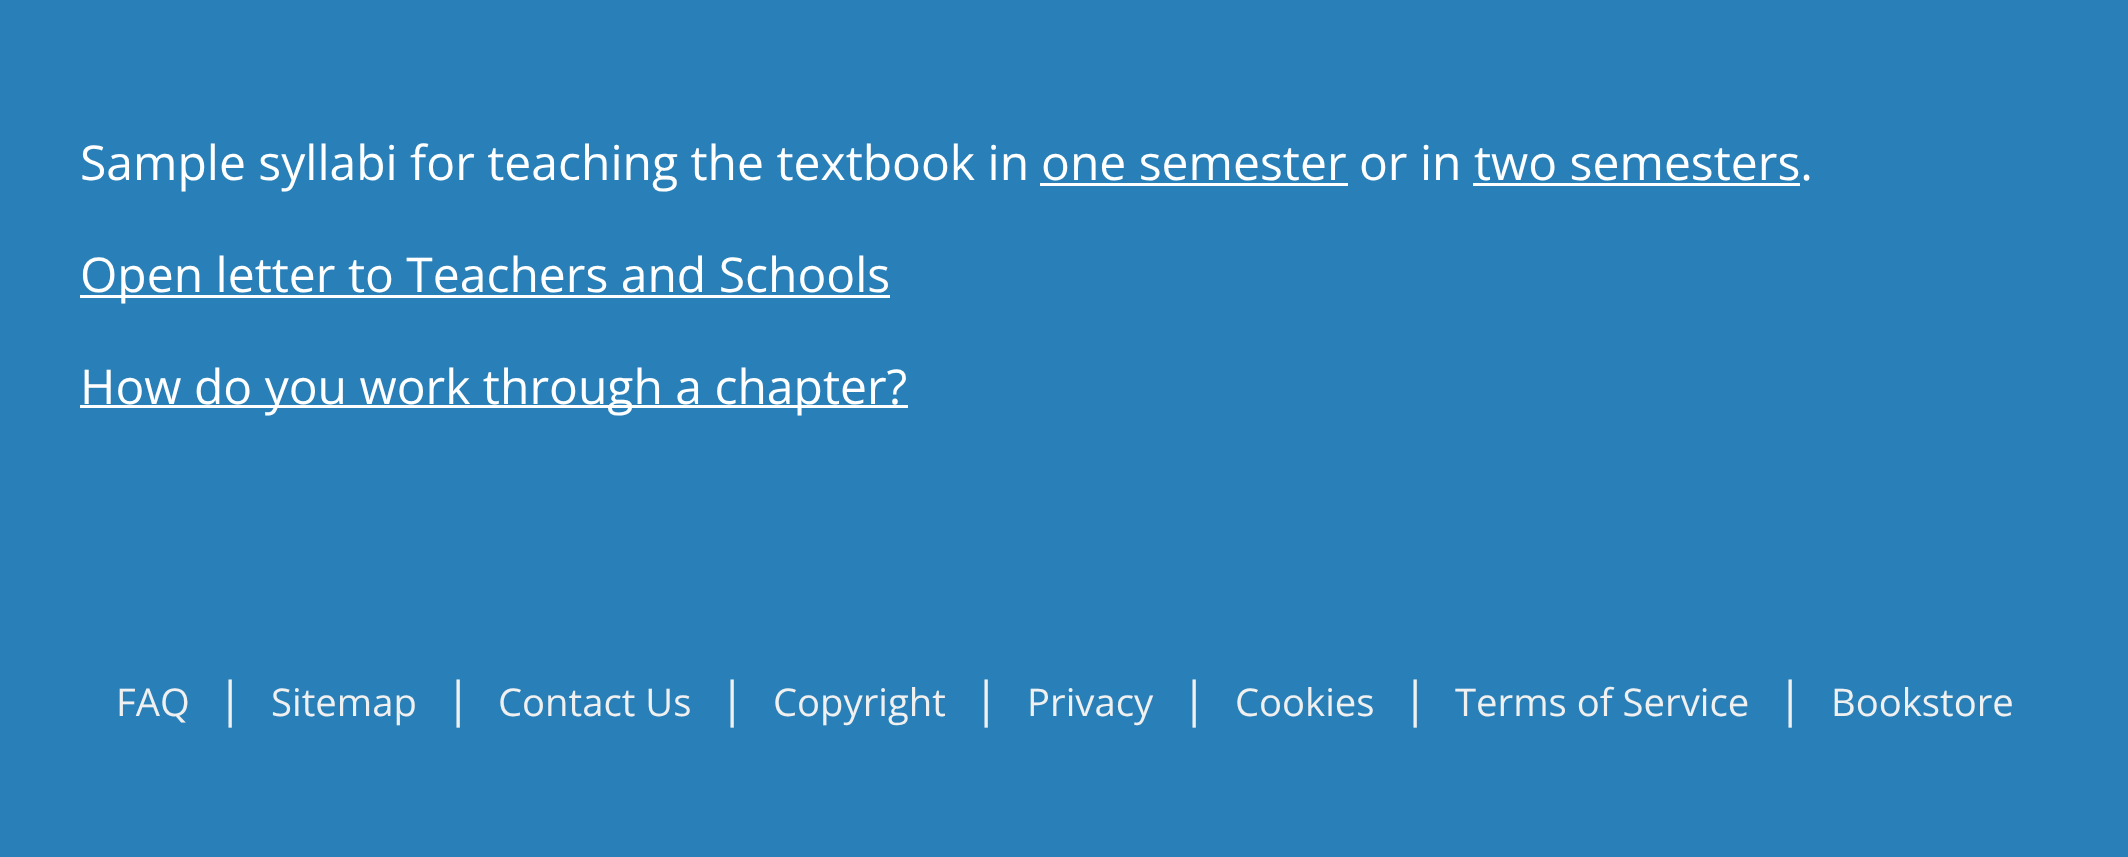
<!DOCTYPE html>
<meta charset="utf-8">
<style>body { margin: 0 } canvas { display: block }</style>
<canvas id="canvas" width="2128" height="857"></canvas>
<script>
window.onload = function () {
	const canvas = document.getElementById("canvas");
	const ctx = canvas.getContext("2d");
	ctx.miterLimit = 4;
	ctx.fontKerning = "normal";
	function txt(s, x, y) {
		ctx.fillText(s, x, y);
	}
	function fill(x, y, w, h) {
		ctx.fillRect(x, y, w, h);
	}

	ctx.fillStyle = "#2980B9";
	fill(0, 0, 2128, 857);
	ctx.fillStyle = "#FFFFFF";
	fill(1040, 183, 308, 3);
	fill(1473, 183, 327, 3);
	fill(80, 295, 810, 3);
	fill(80, 405, 828, 3);
	ctx.font = "48px Open Sans";
	txt("Sample syllabi for teaching the textbook in", 80, 180);
	txt("one semester or in two semesters.", 1041, 180);
	txt("Open letter to Teachers and Schools", 80, 292);
	txt("How do you work through a chapter?", 80, 404);
	ctx.font = "38.25px Open Sans";
	ctx.fillStyle = "#F0F0F0";
	txt("FAQ", 116, 716);
	ctx.font = "48px Open Sans";
	txt("|", 217, 716);
	ctx.font = "38.25px Open Sans";
	txt("Sitemap", 271, 716);
	ctx.font = "48px Open Sans";
	txt("|", 445, 716);
	ctx.font = "38.25px Open Sans";
	txt("Contact Us", 498, 716);
	ctx.font = "48px Open Sans";
	txt("|", 719, 716);
	ctx.font = "38.25px Open Sans";
	txt("Copyright", 773, 716);
	ctx.font = "48px Open Sans";
	txt("|", 973, 716);
	ctx.font = "38.25px Open Sans";
	txt("Privacy", 1027, 716);
	ctx.font = "48px Open Sans";
	txt("|", 1181, 716);
	ctx.font = "38.25px Open Sans";
	txt("Cookies", 1235, 716);
	ctx.font = "48px Open Sans";
	txt("|", 1402, 716);
	ctx.font = "38.25px Open Sans";
	txt("Terms of Service", 1455, 716);
	ctx.font = "48px Open Sans";
	txt("|", 1777, 716);
	ctx.font = "38.25px Open Sans";
	txt("Bookstore", 1831, 716);
};
</script>
